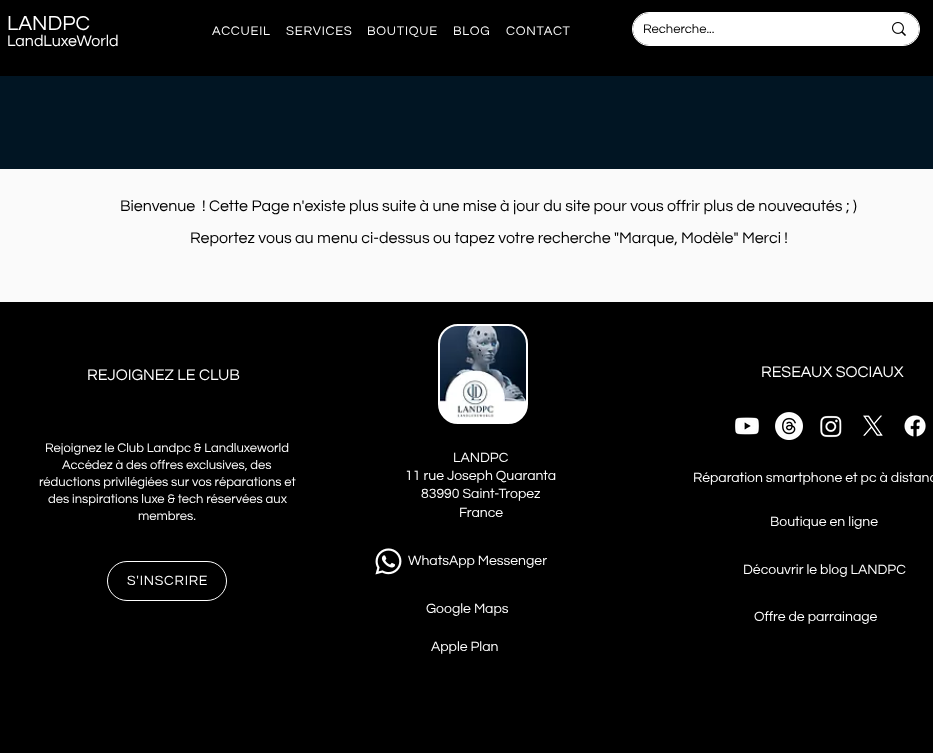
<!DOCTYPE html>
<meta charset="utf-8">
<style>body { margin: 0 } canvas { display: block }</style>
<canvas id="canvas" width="933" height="753"></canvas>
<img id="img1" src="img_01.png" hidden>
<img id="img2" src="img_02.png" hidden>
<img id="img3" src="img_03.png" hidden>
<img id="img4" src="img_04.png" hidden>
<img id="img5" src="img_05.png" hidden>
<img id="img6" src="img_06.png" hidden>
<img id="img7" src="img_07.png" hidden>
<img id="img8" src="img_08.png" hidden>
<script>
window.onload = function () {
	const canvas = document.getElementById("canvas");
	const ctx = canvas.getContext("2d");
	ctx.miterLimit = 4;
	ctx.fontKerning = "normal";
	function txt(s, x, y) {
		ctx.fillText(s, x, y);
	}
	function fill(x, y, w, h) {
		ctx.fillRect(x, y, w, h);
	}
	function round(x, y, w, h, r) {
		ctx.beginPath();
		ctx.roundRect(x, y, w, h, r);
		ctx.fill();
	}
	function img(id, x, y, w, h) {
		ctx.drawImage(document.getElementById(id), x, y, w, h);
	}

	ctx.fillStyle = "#011523";
	fill(0, 0, 933, 753);
	ctx.fillStyle = "#000000";
	fill(0, 0, 933, 76);
	ctx.beginPath();
	ctx.roundRect(632.5, 12.5, 287, 33, 16.5);
	ctx.strokeStyle = "#FFFFFF";
	ctx.stroke();
	ctx.fillStyle = "#FFFFFF";
	round(633, 13, 286, 32, 16);
	img("img1", 892, 22, 14, 14);
	ctx.fillStyle = "#FAFAFA";
	fill(0, 169, 933, 133);
	ctx.fillStyle = "#000000";
	fill(0, 302, 933, 451);
	ctx.beginPath();
	ctx.roundRect(107.5, 561.5, 119, 39, 19.5);
	ctx.stroke();
	ctx.fillStyle = "#FFFFFF";
	ctx.beginPath();
	ctx.roundRect(439, 325, 88, 98, 19);
	ctx.fill();
	ctx.lineWidth = 2;
	ctx.stroke();
	img("img2", 440, 326, 86, 92);
	img("img3", 375, 548, 27, 27);
	img("img4", 735, 417, 24, 18);
	img("img5", 775, 412, 28, 28);
	img("img6", 820, 415, 22, 23);
	img("img7", 863, 415, 20, 21);
	img("img8", 904, 415, 22, 22);
	ctx.font = "21px Questrial";
	txt("LANDPC", 7, 30);
	ctx.font = "16px Questrial";
	txt("LandLuxeWorld", 7, 46);
	ctx.letterSpacing = "0.75px";
	ctx.font = "13px Questrial";
	txt("ACCUEIL", 212, 35);
	txt("SERVICES", 286, 35);
	txt("BOUTIQUE", 367, 35);
	txt("BLOG", 453, 35);
	txt("CONTACT", 506, 35);
	ctx.letterSpacing = "0px";
	ctx.fillStyle = "#000000";
	txt("Recherche...", 643, 33);
	ctx.font = "16px Questrial";
	txt("Bienvenue  ! Cette Page n'existe plus suite à une mise à jour du site pour vous offrir plus de nouveautés ; )", 120, 211);
	txt("Reportez vous au menu ci-dessus ou tapez votre recherche \"Marque, Modèle\" Merci !", 190, 243);
	ctx.fillStyle = "#FFFFFF";
	txt("REJOIGNEZ LE CLUB", 87, 380);
	ctx.font = "13px Questrial";
	txt("Rejoignez le Club Landpc & Landluxeworld", 45, 452);
	txt("Accédez à des offres exclusives, des", 62, 469);
	txt("réductions privilégiées sur vos réparations et", 39, 486);
	txt("des inspirations luxe & tech réservées aux", 48, 503);
	txt("membres.", 138, 520);
	ctx.letterSpacing = "0.75px";
	ctx.font = "14px Questrial";
	txt("S'INSCRIRE", 127, 585);
	ctx.letterSpacing = "0px";
	txt("LANDPC", 453, 462);
	txt("11 rue Joseph Quaranta", 405, 480);
	txt("83990 Saint-Tropez", 421, 498);
	txt("France", 459, 517);
	txt("WhatsApp Messenger", 408, 565);
	txt("Google Maps", 426, 613);
	txt("Apple Plan", 431, 651);
	ctx.font = "16px Questrial";
	txt("RESEAUX SOCIAUX", 761, 377);
	ctx.font = "14px Questrial";
	txt("Réparation smartphone et pc à distanc", 693, 482);
	txt("Boutique en ligne", 770, 526);
	txt("Découvrir le blog LANDPC", 743, 574);
	txt("Offre de parrainage", 754, 621);
};
</script>
